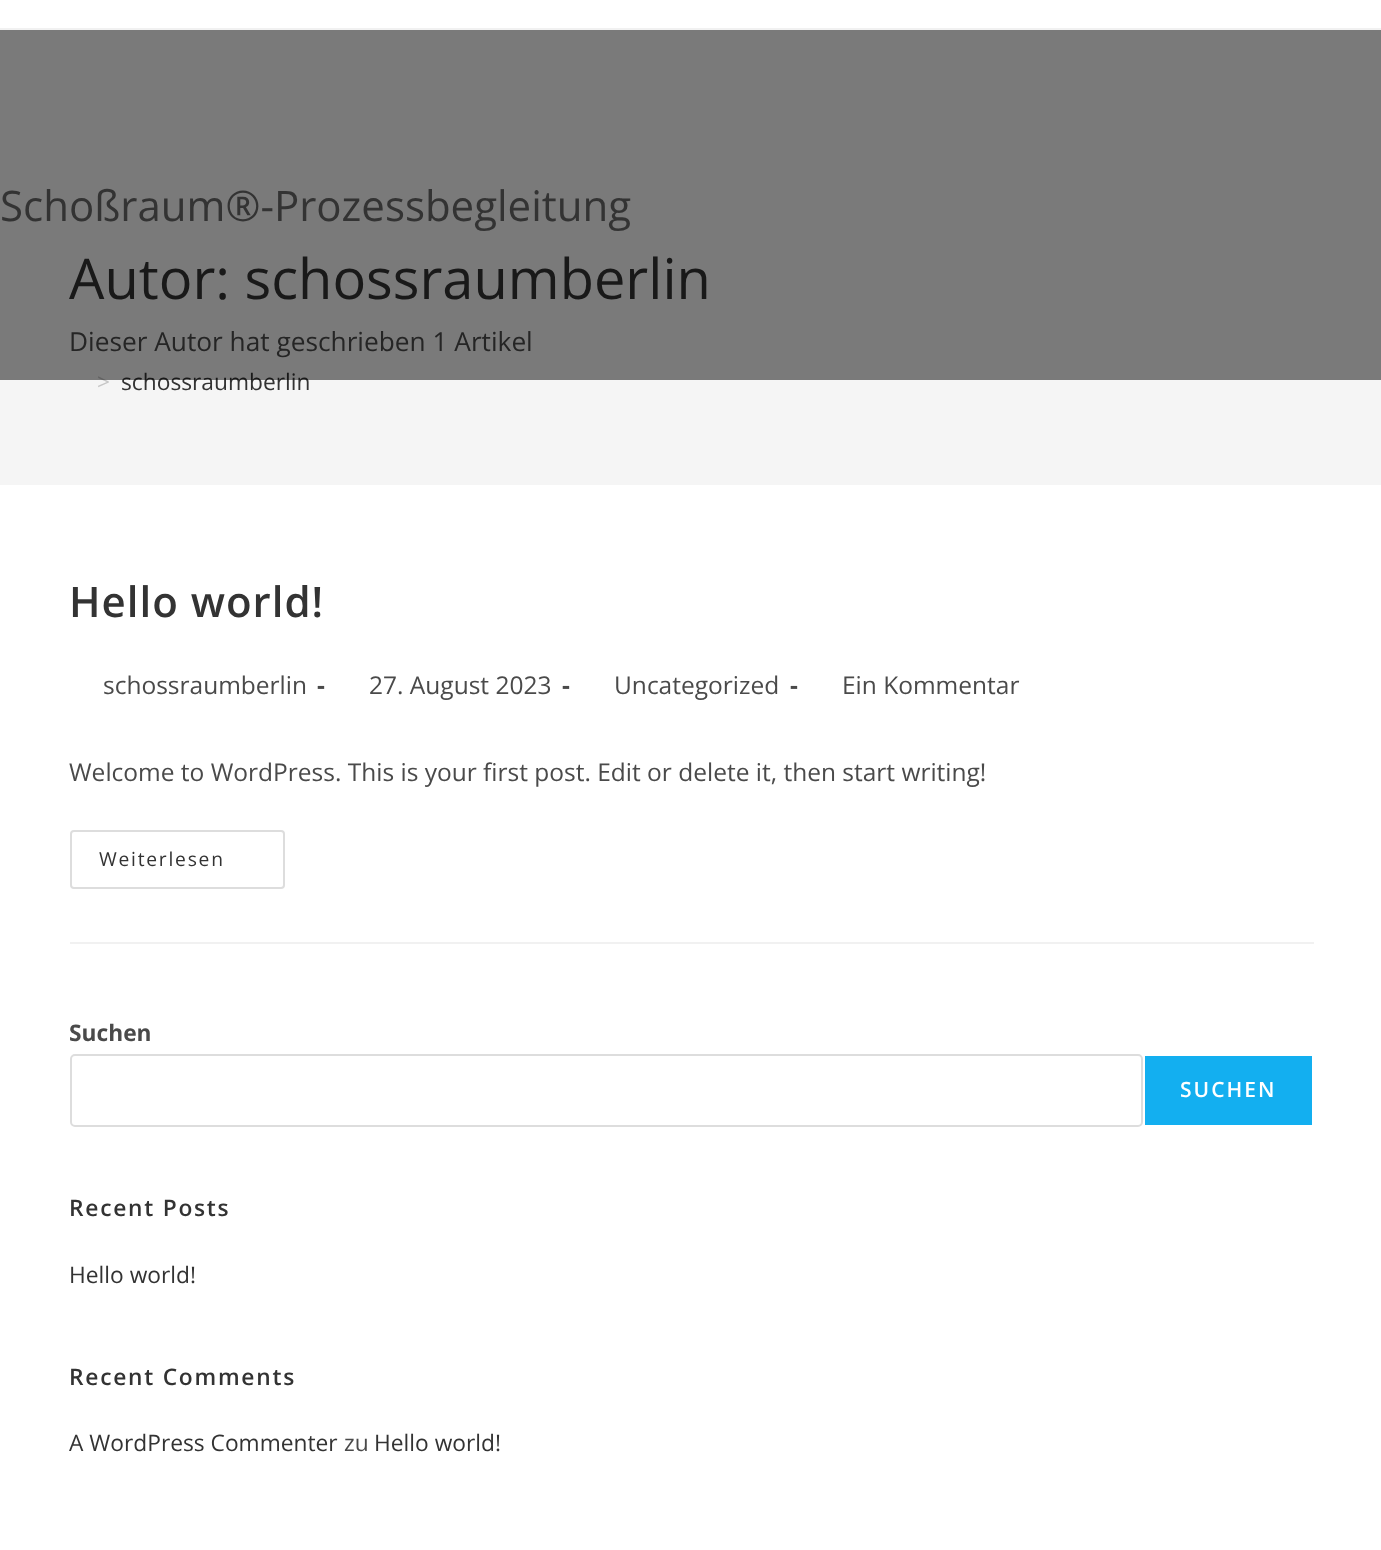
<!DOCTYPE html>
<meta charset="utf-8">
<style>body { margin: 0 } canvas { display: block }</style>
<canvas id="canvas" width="1381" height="1550"></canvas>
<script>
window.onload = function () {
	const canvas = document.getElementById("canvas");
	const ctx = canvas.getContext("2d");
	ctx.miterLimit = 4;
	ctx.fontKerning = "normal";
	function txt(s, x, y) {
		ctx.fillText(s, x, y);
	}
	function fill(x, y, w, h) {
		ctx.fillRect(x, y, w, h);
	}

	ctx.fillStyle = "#FFFFFF";
	fill(0, 0, 1381, 1550);
	ctx.fillStyle = "#F1F1F1";
	fill(0, 28, 1381, 2);
	ctx.fillStyle = "#F5F5F5";
	fill(0, 30, 1381, 455);
	ctx.fillStyle = "#F1F1F1";
	fill(70, 942, 1244, 2);
	ctx.beginPath();
	ctx.roundRect(71, 831, 213, 57, 3);
	ctx.strokeStyle = "#DDDDDD";
	ctx.lineWidth = 2;
	ctx.stroke();
	ctx.beginPath();
	ctx.roundRect(71, 1055, 1071, 71, 4);
	ctx.stroke();
	ctx.fillStyle = "#13AFF0";
	fill(1145, 1056, 167, 69);
	ctx.font = "56px Open Sans";
	ctx.fillStyle = "#333333";
	txt("Autor: schossraumberlin", 69, 299);
	ctx.font = "26.25px Open Sans";
	ctx.fillStyle = "#4A4A4A";
	txt("Dieser Autor hat geschrieben 1 Artikel", 69, 351);
	ctx.font = "22.75px Open Sans";
	ctx.fillStyle = "#C6C6C6";
	txt(">", 97, 390);
	ctx.fillStyle = "#333333";
	txt("schossraumberlin", 121, 390);
	ctx.fillStyle = "rgba(0, 0, 0, 0.5)";
	fill(0, 30, 1381, 350);
	ctx.font = "42px Open Sans";
	ctx.fillStyle = "#333333";
	txt("Schoßraum®-Prozessbegleitung", 0, 221);
	ctx.letterSpacing = "1px";
	ctx.font = "600 42px Open Sans";
	txt("Hello world!", 69, 617);
	ctx.letterSpacing = "0px";
	ctx.font = "24.5px Open Sans";
	ctx.fillStyle = "#4A4A4A";
	txt("schossraumberlin", 103, 694);
	ctx.font = "bold 24.5px Open Sans";
	txt("-", 317, 694);
	ctx.font = "24.5px Open Sans";
	txt("27. August 2023", 369, 694);
	ctx.font = "bold 24.5px Open Sans";
	txt("-", 562, 694);
	ctx.font = "24.5px Open Sans";
	txt("Uncategorized", 614, 694);
	ctx.font = "bold 24.5px Open Sans";
	txt("-", 790, 694);
	ctx.font = "24.5px Open Sans";
	txt("Ein Kommentar", 842, 694);
	txt("Welcome to WordPress. This is your first post. Edit or delete it, then start writing!", 69, 781);
	ctx.letterSpacing = "1.75px";
	ctx.font = "19.25px Open Sans";
	ctx.fillStyle = "#333333";
	txt("Weiterlesen", 99, 866);
	ctx.letterSpacing = "0px";
	ctx.font = "bold 22.75px Open Sans";
	ctx.fillStyle = "#4A4A4A";
	txt("Suchen", 69, 1041);
	ctx.letterSpacing = "2px";
	ctx.font = "600 21px Open Sans";
	ctx.fillStyle = "#FFFFFF";
	txt("SUCHEN", 1180, 1097);
	ctx.letterSpacing = "1.75px";
	ctx.font = "600 22.75px Open Sans";
	ctx.fillStyle = "#333333";
	txt("Recent Posts", 69, 1216);
	ctx.letterSpacing = "0px";
	ctx.font = "22.75px Open Sans";
	txt("Hello world!", 69, 1283);
	ctx.letterSpacing = "1.75px";
	ctx.font = "600 22.75px Open Sans";
	txt("Recent Comments", 69, 1385);
	ctx.letterSpacing = "0px";
	ctx.font = "22.75px Open Sans";
	txt("A WordPress Commenter", 69, 1451);
	ctx.fillStyle = "#4A4A4A";
	txt("zu", 344, 1451);
	ctx.fillStyle = "#333333";
	txt("Hello world!", 374, 1451);
};
</script>
